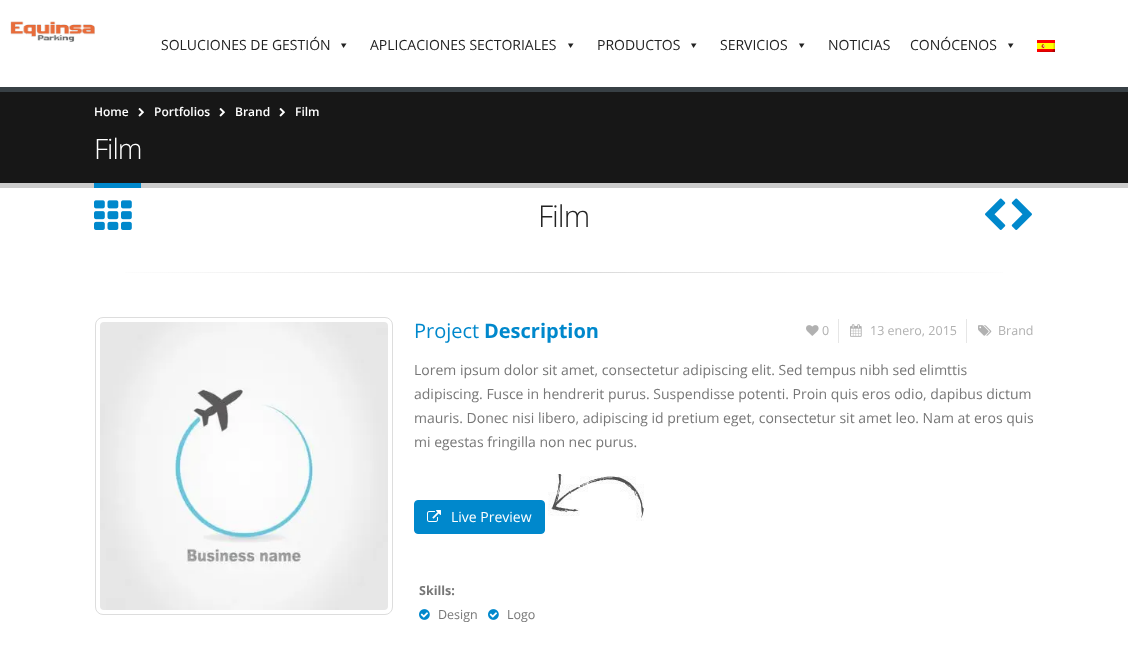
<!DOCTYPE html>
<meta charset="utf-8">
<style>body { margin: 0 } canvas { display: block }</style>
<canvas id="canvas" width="1128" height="656"></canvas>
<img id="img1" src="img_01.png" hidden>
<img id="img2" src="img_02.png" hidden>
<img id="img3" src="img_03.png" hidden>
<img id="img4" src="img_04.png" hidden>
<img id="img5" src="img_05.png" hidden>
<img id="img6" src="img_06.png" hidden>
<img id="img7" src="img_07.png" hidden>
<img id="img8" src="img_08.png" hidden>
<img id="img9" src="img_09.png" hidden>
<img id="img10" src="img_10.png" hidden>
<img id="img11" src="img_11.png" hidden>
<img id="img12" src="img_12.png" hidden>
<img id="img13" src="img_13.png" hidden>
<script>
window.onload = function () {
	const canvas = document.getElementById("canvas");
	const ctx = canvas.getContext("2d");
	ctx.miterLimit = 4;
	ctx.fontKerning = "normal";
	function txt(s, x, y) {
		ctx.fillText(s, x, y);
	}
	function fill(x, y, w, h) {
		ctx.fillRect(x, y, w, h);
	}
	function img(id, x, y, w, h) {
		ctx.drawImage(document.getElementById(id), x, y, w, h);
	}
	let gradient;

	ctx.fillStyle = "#FFFFFF";
	fill(0, 0, 1128, 656);
	img("img1", 10, 21, 85, 21);
	ctx.fillStyle = "#222222";
	ctx.beginPath();
	ctx.moveTo(346.5, 43.5);
	ctx.lineTo(343.5, 48);
	ctx.lineTo(341, 43.5);
	ctx.closePath();
	ctx.fill();
	ctx.beginPath();
	ctx.moveTo(573.5, 43.5);
	ctx.lineTo(570.5, 48);
	ctx.lineTo(568, 43.5);
	ctx.closePath();
	ctx.fill();
	ctx.beginPath();
	ctx.moveTo(696.5, 43.5);
	ctx.lineTo(693.5, 48);
	ctx.lineTo(691, 43.5);
	ctx.closePath();
	ctx.fill();
	ctx.beginPath();
	ctx.moveTo(804.5, 43.5);
	ctx.lineTo(801.5, 48);
	ctx.lineTo(799, 43.5);
	ctx.closePath();
	ctx.fill();
	ctx.beginPath();
	ctx.moveTo(1013.5, 43.5);
	ctx.lineTo(1010.5, 48);
	ctx.lineTo(1008, 43.5);
	ctx.closePath();
	ctx.fill();
	img("img2", 1037, 40, 18, 12);
	ctx.fillStyle = "#171717";
	fill(0, 92, 1128, 91);
	ctx.fillStyle = "#384045";
	fill(0, 87, 1128, 5);
	ctx.fillStyle = "#CCCCCC";
	fill(0, 183, 1128, 5);
	img("img3", 138, 108, 6, 9);
	img("img3", 219, 108, 6, 9);
	img("img3", 279, 108, 6, 9);
	ctx.fillStyle = "#0088CC";
	fill(94, 183, 47, 5);
	img("img4", 94, 200, 38, 30);
	img("img5", 985, 198, 21, 32);
	img("img6", 1011, 198, 21, 32);
	gradient = ctx.createLinearGradient(94, 273, 1034, 272);
	gradient.addColorStop(0, "#FFFFFF");
	gradient.addColorStop(0.5, "#D9D9D9");
	gradient.addColorStop(1, "#FFFFFF");
	ctx.fillStyle = gradient;
	fill(125, 272, 878, 1);
	ctx.beginPath();
	ctx.roundRect(95.5, 317.5, 297, 297, 7.5);
	ctx.strokeStyle = "#DDDDDD";
	ctx.stroke();
	img("img7", 100, 322, 288, 288);
	ctx.fillStyle = "#E6E6E6";
	fill(838, 319, 1, 24);
	img("img8", 806, 325, 13, 11);
	fill(966, 319, 1, 24);
	img("img9", 850, 324, 12, 13);
	img("img10", 978, 325, 14, 11);
	ctx.fillStyle = "#0088CC";
	ctx.beginPath();
	ctx.roundRect(414.5, 500.5, 130, 33, 3.5);
	ctx.fill();
	ctx.strokeStyle = "#0088CC";
	ctx.stroke();
	img("img11", 427, 510, 14, 12);
	img("img12", 548, 474, 96, 47);
	img("img13", 419, 609, 11, 11);
	img("img13", 488, 609, 11, 11);
	ctx.font = "14px Open Sans";
	ctx.fillStyle = "#222222";
	txt("SOLUCIONES DE GESTIÓN", 161, 50);
	txt("APLICACIONES SECTORIALES", 370, 50);
	txt("PRODUCTOS", 597, 50);
	txt("SERVICIOS", 720, 50);
	txt("NOTICIAS", 828, 50);
	txt("CONÓCENOS", 910, 50);
	ctx.font = "600 12px Open Sans";
	ctx.fillStyle = "#FFFFFF";
	txt("Home", 94, 116);
	txt("Portfolios", 154, 116);
	txt("Brand", 235, 116);
	txt("Film", 295, 116);
	ctx.letterSpacing = "-1px";
	ctx.font = "300 28px Open Sans";
	txt("Film", 94, 159);
	ctx.font = "300 30px Open Sans";
	ctx.fillStyle = "#222222";
	txt("Film", 538, 227);
	ctx.letterSpacing = "0px";
	ctx.font = "20px Open Sans";
	ctx.fillStyle = "#0088CC";
	txt("Project", 414, 338);
	ctx.font = "bold 20px Open Sans";
	txt("Description", 484, 338);
	ctx.font = "12.5px Open Sans";
	ctx.fillStyle = "#B1B1B1";
	txt("0", 822, 335);
	txt("13 enero, 2015", 870, 335);
	txt("Brand", 998, 335);
	ctx.font = "14px Open Sans";
	ctx.fillStyle = "#777777";
	txt("Lorem ipsum dolor sit amet, consectetur adipiscing elit. Sed tempus nibh sed elimttis", 414, 375);
	txt("adipiscing. Fusce in hendrerit purus. Suspendisse potenti. Proin quis eros odio, dapibus dictum", 414, 399);
	txt("mauris. Donec nisi libero, adipiscing id pretium eget, consectetur sit amet leo. Nam at eros quis", 414, 423);
	txt("mi egestas fringilla non nec purus.", 414, 447);
	ctx.fillStyle = "#FFFFFF";
	txt("Live Preview", 451, 522);
	ctx.font = "bold 12.5px Open Sans";
	ctx.fillStyle = "#777777";
	txt("Skills:", 419, 595);
	ctx.font = "12.5px Open Sans";
	txt("Design", 438, 619);
	txt("Logo", 507, 619);
};
</script>
